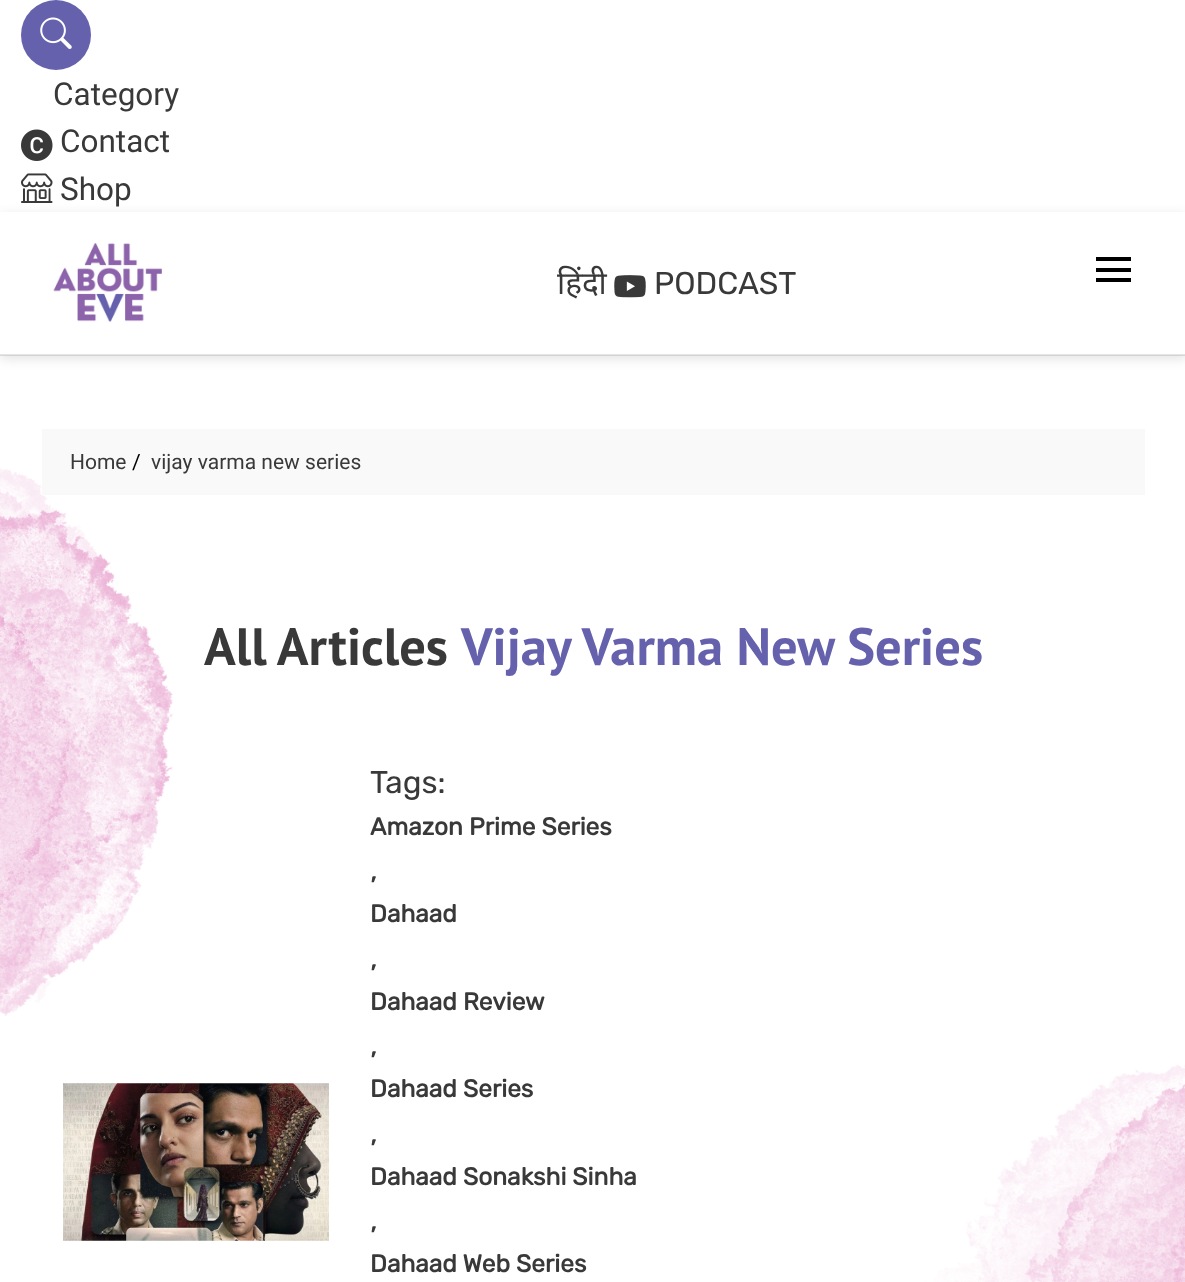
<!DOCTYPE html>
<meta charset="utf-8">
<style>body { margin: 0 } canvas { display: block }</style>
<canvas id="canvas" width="1185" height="1282"></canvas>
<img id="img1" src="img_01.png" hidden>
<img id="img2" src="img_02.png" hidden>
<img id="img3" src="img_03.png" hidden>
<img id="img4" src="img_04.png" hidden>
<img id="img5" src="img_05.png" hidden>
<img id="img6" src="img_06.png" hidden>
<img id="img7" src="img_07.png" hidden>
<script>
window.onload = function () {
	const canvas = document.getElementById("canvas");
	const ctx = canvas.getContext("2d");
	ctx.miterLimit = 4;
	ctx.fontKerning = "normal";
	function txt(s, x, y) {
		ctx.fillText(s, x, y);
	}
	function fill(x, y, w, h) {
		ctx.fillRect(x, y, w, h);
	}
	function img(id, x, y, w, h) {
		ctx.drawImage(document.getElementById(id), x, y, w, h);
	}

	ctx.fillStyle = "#FFFFFF";
	fill(0, 0, 1185, 1282);
	ctx.fillStyle = "#6561AD";
	ctx.beginPath();
	ctx.arc(56, 35, 35, 0, Math.PI * 2);
	ctx.fill();
	img("img1", 40, 17, 32, 32);
	img("img2", 21, 129, 32, 32);
	ctx.save();
	ctx.beginPath();
	ctx.moveTo(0, 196);
	ctx.lineTo(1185, 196);
	ctx.lineTo(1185, 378);
	ctx.lineTo(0, 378);
	ctx.closePath();
	ctx.moveTo(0, 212);
	ctx.lineTo(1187, 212);
	ctx.lineTo(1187, 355);
	ctx.lineTo(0, 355);
	ctx.closePath();
	ctx.clip("evenodd");
	ctx.fillStyle = "rgba(0, 0, 0, 0.11)";
	ctx.filter = "blur(6px)";
	ctx.beginPath();
	ctx.rect(0, 215, 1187, 144);
	ctx.fill();
	ctx.filter = "none";
	ctx.restore();
	img("img3", 21, 173, 32, 30);
	ctx.fillStyle = "rgba(0, 0, 0, 0.1)";
	fill(0, 354, 1185, 2);
	img("img4", 53, 242, 109, 80);
	img("img5", 614, 275, 32, 23);
	ctx.fillStyle = "#000000";
	fill(1096, 257, 35, 4);
	fill(1096, 268, 35, 4);
	fill(1096, 278, 35, 4);
	img("img6", 0, 468, 1185, 814);
	ctx.fillStyle = "#FAF9F9";
	fill(42, 429, 1103, 66);
	img("img7", 63, 1083, 266, 158);
	ctx.font = "31.5px Roboto";
	ctx.fillStyle = "#393939";
	txt("Category", 53, 105);
	txt("Contact", 60, 152);
	txt("Shop", 60, 200);
	ctx.font = "31.5px Noto Sans";
	txt("हिंदी", 557, 294);
	ctx.font = "300 31.5px Rubik";
	txt("PODCAST", 654, 294);
	ctx.font = "21px Roboto";
	txt("Home", 70, 469);
	ctx.fillStyle = "#000000";
	txt("/", 132, 469);
	ctx.fillStyle = "#393939";
	txt("vijay varma new series", 151, 469);
	ctx.wordSpacing = "-1px";
	ctx.font = "bold 52.5px PT Sans";
	txt("All Articles", 204, 665);
	ctx.wordSpacing = "0px";
	ctx.fillStyle = "#6561AD";
	txt("Vijay Varma New Series", 461, 665);
	ctx.font = "300 31.5px Rubik";
	ctx.fillStyle = "#393939";
	txt("Tags:", 370, 793);
	ctx.font = "bold 24.5px Rubik";
	txt("Amazon Prime Series", 370, 835);
	ctx.font = "300 31.5px Rubik";
	txt(",", 370, 880);
	ctx.font = "bold 24.5px Rubik";
	txt("Dahaad", 370, 922);
	ctx.font = "300 31.5px Rubik";
	txt(",", 370, 968);
	ctx.font = "bold 24.5px Rubik";
	txt("Dahaad Review", 370, 1010);
	ctx.font = "300 31.5px Rubik";
	txt(",", 370, 1055);
	ctx.font = "bold 24.5px Rubik";
	txt("Dahaad Series", 370, 1097);
	ctx.font = "300 31.5px Rubik";
	txt(",", 370, 1143);
	ctx.font = "bold 24.5px Rubik";
	txt("Dahaad Sonakshi Sinha", 370, 1185);
	ctx.font = "300 31.5px Rubik";
	txt(",", 370, 1230);
	ctx.font = "bold 24.5px Rubik";
	txt("Dahaad Web Series", 370, 1272);
};
</script>
